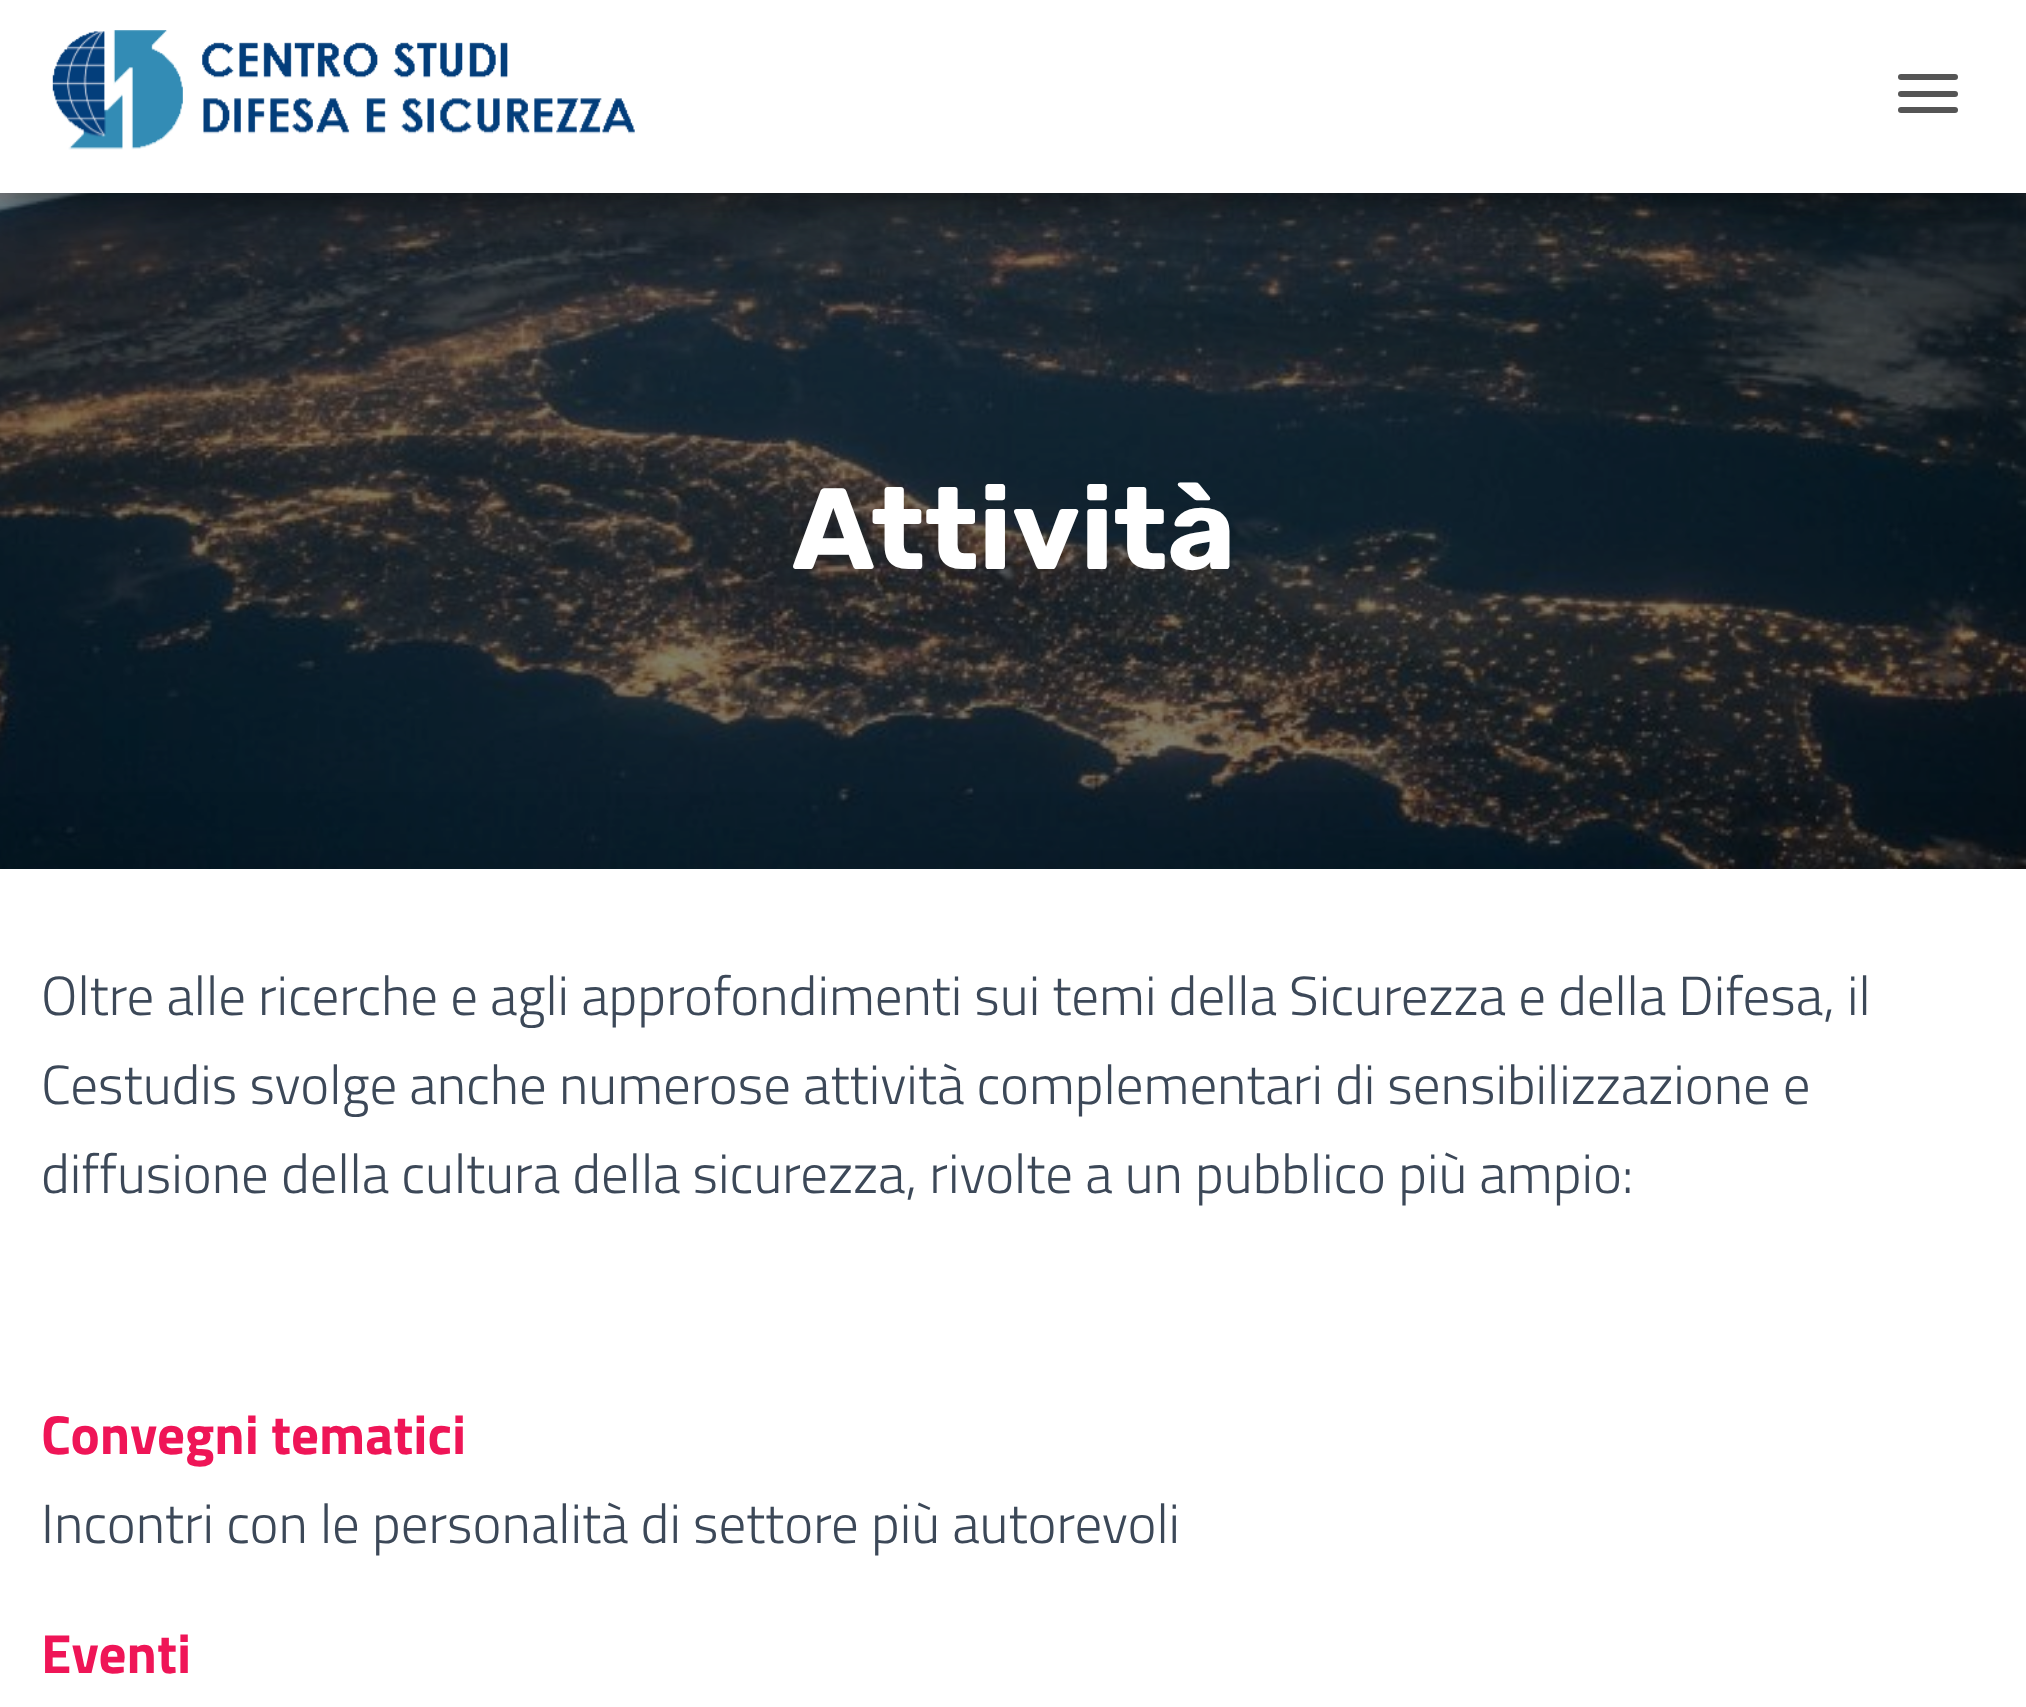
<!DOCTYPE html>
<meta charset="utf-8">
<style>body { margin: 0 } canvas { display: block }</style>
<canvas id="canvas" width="2026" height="1707"></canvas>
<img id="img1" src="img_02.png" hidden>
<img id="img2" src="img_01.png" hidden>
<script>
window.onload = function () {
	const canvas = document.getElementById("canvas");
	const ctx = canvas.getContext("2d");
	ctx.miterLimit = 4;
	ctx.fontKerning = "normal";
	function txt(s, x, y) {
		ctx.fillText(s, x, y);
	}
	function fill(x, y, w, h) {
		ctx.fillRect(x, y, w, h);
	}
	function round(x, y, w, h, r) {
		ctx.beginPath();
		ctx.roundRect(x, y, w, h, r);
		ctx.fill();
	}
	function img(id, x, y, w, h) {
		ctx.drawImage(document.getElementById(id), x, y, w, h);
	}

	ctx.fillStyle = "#FFFFFF";
	fill(0, 0, 2026, 1707);
	img("img1", 0, 193, 2026, 676);
	ctx.fillStyle = "rgba(0, 0, 0, 0.2)";
	ctx.filter = "blur(14px)";
	ctx.beginPath();
	ctx.rect(14, 36, 1999, 165);
	ctx.fill();
	ctx.filter = "none";
	ctx.fillStyle = "rgba(0, 0, 0, 0.12)";
	ctx.filter = "blur(27.5px)";
	ctx.beginPath();
	ctx.rect(0, 8, 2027, 193);
	ctx.fill();
	ctx.filter = "none";
	ctx.fillStyle = "rgba(0, 0, 0, 0.42)";
	ctx.filter = "blur(27.5px)";
	ctx.beginPath();
	ctx.rect(33, 61, 1961, 126);
	ctx.fill();
	ctx.filter = "none";
	ctx.fillStyle = "#FFFFFF";
	fill(0, 0, 2026, 193);
	img("img2", 52, 30, 583, 120);
	ctx.fillStyle = "#555555";
	round(1898, 74, 60, 6, 3);
	round(1898, 91, 60, 6, 3);
	round(1898, 107, 60, 6, 3);
	ctx.fillStyle = "rgba(0, 0, 0, 0.12)";
	ctx.filter = "blur(41px)";
	ctx.beginPath();
	ctx.rect(-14, 872, 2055, 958);
	ctx.fill();
	ctx.filter = "none";
	ctx.fillStyle = "#FFFFFF";
	fill(0, 869, 2026, 838);
	ctx.font = "bold 115.5px Rubik";
	txt("Attività", 792, 569);
	ctx.font = "300 55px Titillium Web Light";
	ctx.fillStyle = "#3C4858";
	txt("Oltre alle ricerche e agli approfondimenti sui temi della Sicurezza e della Difesa, il", 41, 1015);
	txt("Cestudis svolge anche numerose attività complementari di sensibilizzazione e", 41, 1104);
	txt("diffusione della cultura della sicurezza, rivolte a un pubblico più ampio:", 41, 1193);
	ctx.font = "bold 55px Titillium Web";
	ctx.fillStyle = "#EF1557";
	txt("Convegni tematici", 41, 1454);
	ctx.font = "300 55px Titillium Web Light";
	ctx.fillStyle = "#3C4858";
	txt("Incontri con le personalità di settore più autorevoli", 41, 1543);
	ctx.font = "bold 55px Titillium Web";
	ctx.fillStyle = "#EF1557";
	txt("Eventi", 41, 1673);
};
</script>
